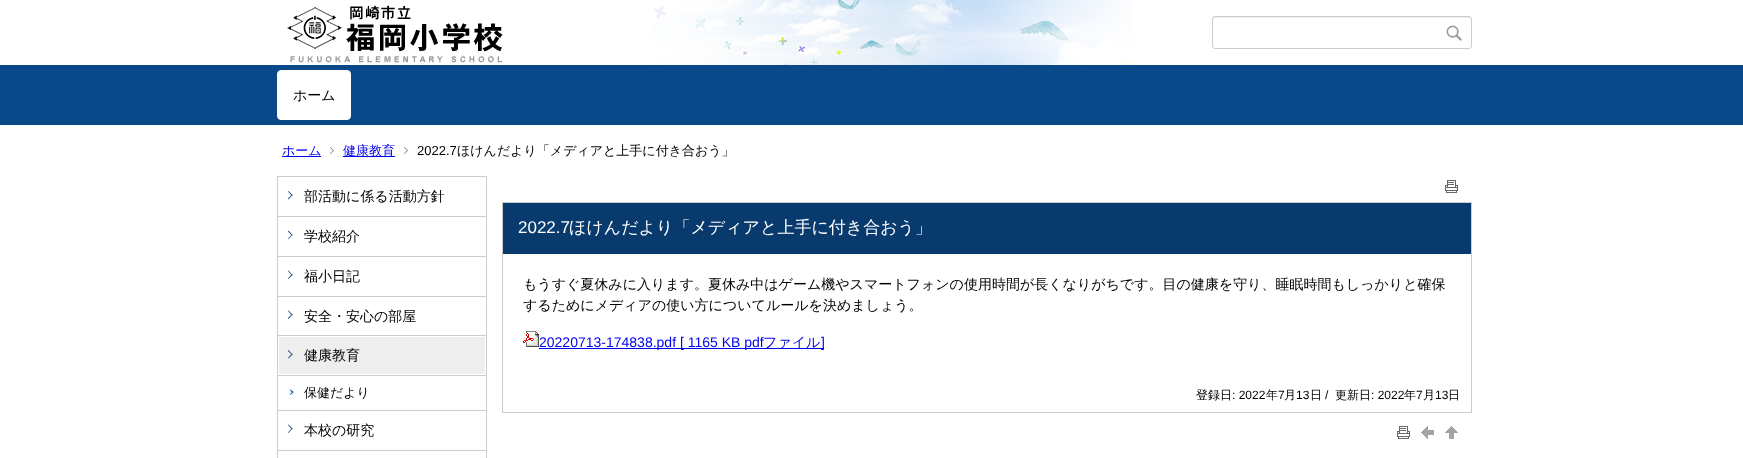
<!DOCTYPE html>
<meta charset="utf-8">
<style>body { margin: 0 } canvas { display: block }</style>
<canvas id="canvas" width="1743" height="458"></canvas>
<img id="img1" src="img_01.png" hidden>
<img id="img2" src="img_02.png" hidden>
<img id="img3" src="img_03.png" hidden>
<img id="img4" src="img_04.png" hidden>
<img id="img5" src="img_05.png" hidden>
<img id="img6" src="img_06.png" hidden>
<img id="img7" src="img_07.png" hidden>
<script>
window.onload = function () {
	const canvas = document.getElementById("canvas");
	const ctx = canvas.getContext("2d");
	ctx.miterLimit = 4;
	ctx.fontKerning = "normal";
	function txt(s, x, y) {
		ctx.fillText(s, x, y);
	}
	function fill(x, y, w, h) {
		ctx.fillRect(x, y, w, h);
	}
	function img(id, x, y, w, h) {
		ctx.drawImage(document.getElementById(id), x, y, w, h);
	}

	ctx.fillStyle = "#FFFFFF";
	fill(0, 0, 1743, 458);
	img("img1", 653, 0, 479, 65);
	img("img2", 287, 5, 216, 58);
	ctx.fillStyle = "#ECECEC";
	ctx.beginPath();
	ctx.moveTo(1215, 18);
	ctx.lineTo(1469, 18);
	ctx.bezierCurveTo(1470, 18, 1471, 19, 1471, 20);
	ctx.lineTo(1470, 17);
	ctx.lineTo(1215, 17);
	ctx.bezierCurveTo(1213, 17, 1213, 19, 1213, 20);
	ctx.bezierCurveTo(1213, 19, 1214, 18, 1215, 18);
	ctx.closePath();
	ctx.fill();
	ctx.beginPath();
	ctx.roundRect(1212.5, 16.5, 259, 32, 2.5);
	ctx.strokeStyle = "#CCCCCC";
	ctx.stroke();
	img("img3", 1446, 25, 16, 16);
	ctx.fillStyle = "#0A4989";
	fill(0, 65, 1743, 60);
	ctx.fillStyle = "#FFFFFF";
	ctx.beginPath();
	ctx.roundRect(277.5, 70.5, 73, 49, 3.5);
	ctx.fill();
	ctx.strokeStyle = "#FFFFFF";
	ctx.stroke();
	ctx.fillStyle = "#0000EE";
	fill(282, 156, 39, 1);
	ctx.fillStyle = "#777777";
	ctx.beginPath();
	ctx.moveTo(330.5, 147);
	ctx.lineTo(334, 150.5);
	ctx.lineTo(333.5, 151);
	ctx.lineTo(330, 147.5);
	ctx.closePath();
	ctx.fill();
	ctx.beginPath();
	ctx.moveTo(333.5, 150);
	ctx.lineTo(334, 150.5);
	ctx.lineTo(330.5, 154);
	ctx.lineTo(330, 153.5);
	ctx.closePath();
	ctx.fill();
	ctx.fillStyle = "#0000EE";
	fill(343, 156, 52, 1);
	ctx.fillStyle = "#777777";
	ctx.beginPath();
	ctx.moveTo(404.5, 147);
	ctx.lineTo(408, 150.5);
	ctx.lineTo(407.5, 151);
	ctx.lineTo(404, 147.5);
	ctx.closePath();
	ctx.fill();
	ctx.beginPath();
	ctx.moveTo(407.5, 150);
	ctx.lineTo(408, 150.5);
	ctx.lineTo(404.5, 154);
	ctx.lineTo(404, 153.5);
	ctx.closePath();
	ctx.fill();
	ctx.strokeStyle = "#CCCCCC";
	ctx.strokeRect(277.5, 176.5, 209, 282);
	ctx.fillStyle = "#0A4989";
	ctx.beginPath();
	ctx.moveTo(288.5, 191);
	ctx.lineTo(292.5, 195);
	ctx.lineTo(292, 196);
	ctx.lineTo(288, 191.5);
	ctx.closePath();
	ctx.fill();
	ctx.beginPath();
	ctx.moveTo(292, 194.5);
	ctx.lineTo(292.5, 195);
	ctx.lineTo(288.5, 199.5);
	ctx.lineTo(288, 198.5);
	ctx.closePath();
	ctx.fill();
	ctx.fillStyle = "#CCCCCC";
	fill(278, 216, 208, 1);
	ctx.fillStyle = "#0A4989";
	ctx.beginPath();
	ctx.moveTo(288.5, 230.5);
	ctx.lineTo(292.5, 235);
	ctx.lineTo(292, 235.5);
	ctx.lineTo(288, 231.5);
	ctx.closePath();
	ctx.fill();
	ctx.beginPath();
	ctx.moveTo(292, 234.5);
	ctx.lineTo(292.5, 235);
	ctx.lineTo(288.5, 239);
	ctx.lineTo(288, 238.5);
	ctx.closePath();
	ctx.fill();
	ctx.fillStyle = "#CCCCCC";
	fill(278, 256, 208, 1);
	ctx.fillStyle = "#0A4989";
	ctx.beginPath();
	ctx.moveTo(288.5, 270.5);
	ctx.lineTo(292.5, 275);
	ctx.lineTo(292, 275.5);
	ctx.lineTo(288, 271);
	ctx.closePath();
	ctx.fill();
	ctx.beginPath();
	ctx.moveTo(292, 274);
	ctx.lineTo(292.5, 275);
	ctx.lineTo(288.5, 279);
	ctx.lineTo(288, 278.5);
	ctx.closePath();
	ctx.fill();
	ctx.fillStyle = "#CCCCCC";
	fill(278, 296, 208, 1);
	ctx.fillStyle = "#0A4989";
	ctx.beginPath();
	ctx.moveTo(288.5, 310.5);
	ctx.lineTo(292.5, 314.5);
	ctx.lineTo(292, 315.5);
	ctx.lineTo(288, 311);
	ctx.closePath();
	ctx.fill();
	ctx.beginPath();
	ctx.moveTo(292, 314);
	ctx.lineTo(292.5, 314.5);
	ctx.lineTo(288.5, 319);
	ctx.lineTo(288, 318);
	ctx.closePath();
	ctx.fill();
	ctx.fillStyle = "#CCCCCC";
	fill(278, 335, 208, 1);
	ctx.fillStyle = "#EEEEEE";
	fill(279, 337, 206, 37);
	ctx.fillStyle = "#0A4989";
	ctx.beginPath();
	ctx.moveTo(288.5, 350);
	ctx.lineTo(292.5, 354.5);
	ctx.lineTo(292, 355);
	ctx.lineTo(288, 351);
	ctx.closePath();
	ctx.fill();
	ctx.beginPath();
	ctx.moveTo(292, 353.5);
	ctx.lineTo(292.5, 354.5);
	ctx.lineTo(288.5, 358.5);
	ctx.lineTo(288, 358);
	ctx.closePath();
	ctx.fill();
	ctx.fillStyle = "#CCCCCC";
	fill(278, 375, 208, 1);
	ctx.fillStyle = "#0A4989";
	ctx.beginPath();
	ctx.moveTo(290.5, 389.5);
	ctx.lineTo(293.5, 392);
	ctx.lineTo(292.5, 393);
	ctx.lineTo(290, 390);
	ctx.closePath();
	ctx.fill();
	ctx.beginPath();
	ctx.moveTo(292.5, 391.5);
	ctx.lineTo(293.5, 392);
	ctx.lineTo(290.5, 395);
	ctx.lineTo(290, 394.5);
	ctx.closePath();
	ctx.fill();
	ctx.fillStyle = "#CCCCCC";
	fill(278, 410, 208, 1);
	ctx.fillStyle = "#0A4989";
	ctx.beginPath();
	ctx.moveTo(288.5, 424.5);
	ctx.lineTo(292.5, 428.5);
	ctx.lineTo(292, 429.5);
	ctx.lineTo(288, 425);
	ctx.closePath();
	ctx.fill();
	ctx.beginPath();
	ctx.moveTo(292, 428);
	ctx.lineTo(292.5, 428.5);
	ctx.lineTo(288.5, 433);
	ctx.lineTo(288, 432.5);
	ctx.closePath();
	ctx.fill();
	ctx.fillStyle = "#CCCCCC";
	fill(278, 450, 208, 1);
	img("img4", 1445, 180, 13, 13);
	ctx.strokeRect(502.5, 202.5, 969, 210);
	ctx.fillStyle = "#083A6E";
	fill(503, 203, 968, 51);
	img("img5", 523, 331, 16, 16);
	ctx.fillStyle = "#0000EE";
	fill(539, 348, 285, 1);
	img("img4", 1397, 426, 13, 13);
	img("img6", 1421, 426, 13, 13);
	img("img7", 1445, 426, 13, 13);
	ctx.font = "500 14px WenQuanYi Zen Hei";
	ctx.fillStyle = "#000000";
	txt("ホーム", 293, 100);
	ctx.font = "500 13px WenQuanYi Zen Hei";
	ctx.fillStyle = "#0000EE";
	txt("ホーム", 282, 155);
	txt("健康教育", 343, 155);
	ctx.font = "13px Liberation Sans";
	ctx.fillStyle = "#000000";
	txt("2022.7", 417, 155);
	ctx.font = "500 13px WenQuanYi Zen Hei";
	txt("ほけんだより「メディアと上手に付き合おう」", 457, 155);
	ctx.font = "500 14px WenQuanYi Zen Hei";
	txt("部活動に係る活動方針", 304, 201);
	txt("学校紹介", 304, 241);
	txt("福小日記", 304, 281);
	txt("安全・安心の部屋", 304, 321);
	txt("健康教育", 304, 360);
	ctx.font = "500 13px WenQuanYi Zen Hei";
	txt("保健だより", 304, 397);
	ctx.font = "500 14px WenQuanYi Zen Hei";
	txt("本校の研究", 304, 435);
	ctx.font = "17px Liberation Sans";
	ctx.fillStyle = "#FFFFFF";
	txt("2022.7", 518, 233);
	ctx.font = "500 17px WenQuanYi Zen Hei";
	txt("ほけんだより「メディアと上手に付き合おう」", 569, 233);
	ctx.font = "500 14px WenQuanYi Zen Hei";
	ctx.fillStyle = "#000000";
	txt("もうすぐ夏休みに入ります。夏休み中はゲーム機やスマートフォンの使用時間が長くなりがちです。目の健康を守り、睡眠時間もしっかりと確保", 523, 289);
	txt("するためにメディアの使い方についてルールを決めましょう。", 523, 310);
	ctx.font = "14px Liberation Sans";
	ctx.fillStyle = "#0000EE";
	txt("20220713-174838.pdf [ 1165 KB pdf", 539, 347);
	ctx.font = "500 14px WenQuanYi Zen Hei";
	txt("ファイル", 763, 347);
	ctx.font = "14px Liberation Sans";
	txt("]", 821, 347);
	ctx.font = "500 12px WenQuanYi Zen Hei";
	ctx.fillStyle = "#000000";
	txt("登録日", 1196, 399);
	ctx.font = "12px Liberation Sans";
	txt(": 2022", 1232, 399);
	ctx.font = "500 12px WenQuanYi Zen Hei";
	txt("年", 1266, 399);
	ctx.font = "12px Liberation Sans";
	txt("7", 1278, 399);
	ctx.font = "500 12px WenQuanYi Zen Hei";
	txt("月", 1284, 399);
	ctx.font = "12px Liberation Sans";
	txt("13", 1296, 399);
	ctx.font = "500 12px WenQuanYi Zen Hei";
	txt("日", 1310, 399);
	ctx.font = "12px Liberation Sans";
	txt("/", 1325, 399);
	ctx.font = "500 12px WenQuanYi Zen Hei";
	txt("更新日", 1335, 399);
	ctx.font = "12px Liberation Sans";
	txt(": 2022", 1371, 399);
	ctx.font = "500 12px WenQuanYi Zen Hei";
	txt("年", 1404, 399);
	ctx.font = "12px Liberation Sans";
	txt("7", 1416, 399);
	ctx.font = "500 12px WenQuanYi Zen Hei";
	txt("月", 1423, 399);
	ctx.font = "12px Liberation Sans";
	txt("13", 1435, 399);
	ctx.font = "500 12px WenQuanYi Zen Hei";
	txt("日", 1448, 399);
};
</script>
